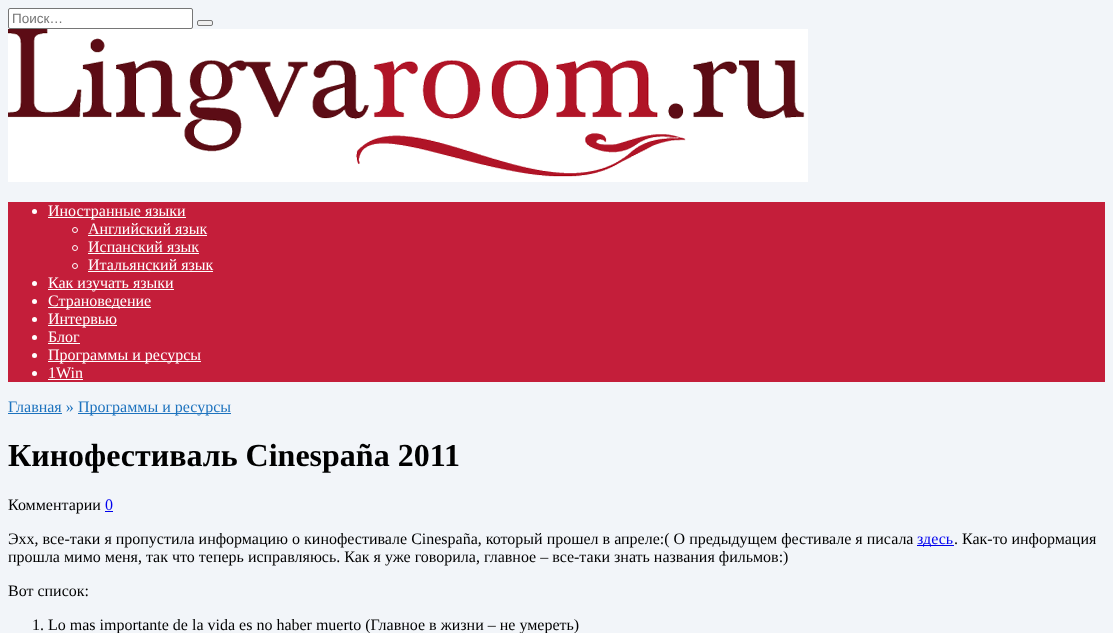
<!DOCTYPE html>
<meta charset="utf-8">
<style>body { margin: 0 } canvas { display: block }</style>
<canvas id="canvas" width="1113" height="633"></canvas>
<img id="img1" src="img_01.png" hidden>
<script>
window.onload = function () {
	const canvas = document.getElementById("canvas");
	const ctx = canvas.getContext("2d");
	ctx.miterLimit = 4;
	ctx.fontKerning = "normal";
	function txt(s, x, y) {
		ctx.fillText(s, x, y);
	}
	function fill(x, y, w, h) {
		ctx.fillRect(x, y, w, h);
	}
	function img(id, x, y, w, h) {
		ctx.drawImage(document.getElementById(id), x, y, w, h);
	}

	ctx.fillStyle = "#F2F5F9";
	fill(0, 0, 1113, 633);
	ctx.fillStyle = "#FFFFFF";
	ctx.beginPath();
	ctx.roundRect(8.5, 8.5, 184, 20, 1.5);
	ctx.fill();
	ctx.strokeStyle = "#767676";
	ctx.stroke();
	ctx.fillStyle = "#EFEFEF";
	ctx.beginPath();
	ctx.roundRect(197.5, 20.5, 15, 5, 1.5);
	ctx.fill();
	ctx.stroke();
	img("img1", 8, 29, 800, 153);
	ctx.fillStyle = "#C41E3A";
	fill(8, 202, 1097, 180);
	ctx.fillStyle = "#FFFFFF";
	ctx.beginPath();
	ctx.arc(34.5, 211.5, 2.5, 0, Math.PI * 2);
	ctx.fill();
	fill(48, 217, 138, 1);
	ctx.beginPath();
	ctx.arc(75, 230, 2.5, 0, Math.PI * 2);
	ctx.strokeStyle = "#FFFFFF";
	ctx.stroke();
	fill(88, 235, 119, 1);
	ctx.beginPath();
	ctx.arc(75, 248, 2.5, 0, Math.PI * 2);
	ctx.stroke();
	fill(88, 253, 111, 1);
	ctx.beginPath();
	ctx.arc(75, 266, 2.5, 0, Math.PI * 2);
	ctx.stroke();
	fill(88, 271, 125, 1);
	ctx.beginPath();
	ctx.arc(34.5, 283.5, 2.5, 0, Math.PI * 2);
	ctx.fill();
	fill(48, 289, 126, 1);
	ctx.beginPath();
	ctx.arc(34.5, 301.5, 2.5, 0, Math.PI * 2);
	ctx.fill();
	fill(48, 307, 103, 1);
	ctx.beginPath();
	ctx.arc(34.5, 319.5, 2.5, 0, Math.PI * 2);
	ctx.fill();
	fill(48, 325, 69, 1);
	ctx.beginPath();
	ctx.arc(34.5, 337.5, 2.5, 0, Math.PI * 2);
	ctx.fill();
	fill(48, 343, 32, 1);
	ctx.beginPath();
	ctx.arc(34.5, 355.5, 2.5, 0, Math.PI * 2);
	ctx.fill();
	fill(48, 361, 153, 1);
	ctx.beginPath();
	ctx.arc(34.5, 373.5, 2.5, 0, Math.PI * 2);
	ctx.fill();
	fill(48, 379, 35, 1);
	ctx.fillStyle = "#1E73BE";
	fill(8, 413, 54, 1);
	fill(78, 413, 153, 1);
	ctx.fillStyle = "#0000EE";
	fill(105, 511, 8, 1);
	fill(917, 545, 37, 1);
	ctx.font = "13.5px Liberation Sans";
	ctx.fillStyle = "#757575";
	txt("Поиск…", 12, 23);
	ctx.font = "16px Liberation Serif";
	ctx.fillStyle = "#FFFFFF";
	txt("Иностранные языки", 48, 216);
	txt("Английский язык", 88, 234);
	txt("Испанский язык", 88, 252);
	txt("Итальянский язык", 88, 270);
	txt("Как изучать языки", 48, 288);
	txt("Страноведение", 48, 306);
	txt("Интервью", 48, 324);
	txt("Блог", 48, 342);
	txt("Программы и ресурсы", 48, 360);
	txt("1Win", 48, 378);
	ctx.fillStyle = "#1E73BE";
	txt("Главная »", 8, 412);
	txt("Программы и ресурсы", 78, 412);
	ctx.font = "bold 32px Liberation Serif";
	ctx.fillStyle = "#000000";
	txt("Кинофестиваль Cinespaña 2011", 8, 466);
	ctx.font = "16px Liberation Serif";
	txt("Комментарии", 8, 510);
	ctx.fillStyle = "#0000EE";
	txt("0", 105, 510);
	ctx.fillStyle = "#000000";
	txt("Эхх, все-таки я пропустила информацию о кинофестивале Cinespaña, который прошел в апреле:( О предыдущем фестивале я писала", 8, 544);
	ctx.fillStyle = "#0000EE";
	txt("здесь", 917, 544);
	ctx.fillStyle = "#000000";
	txt(". Как-то информация", 954, 544);
	txt("прошла мимо меня, так что теперь исправляюсь. Как я уже говорила, главное – все-таки знать названия фильмов:)", 8, 562);
	txt("Вот список:", 8, 596);
	txt("1. Lo mas importante de la vida es no haber muerto (Главное в жизни – не умереть)", 32, 630);
};
</script>
